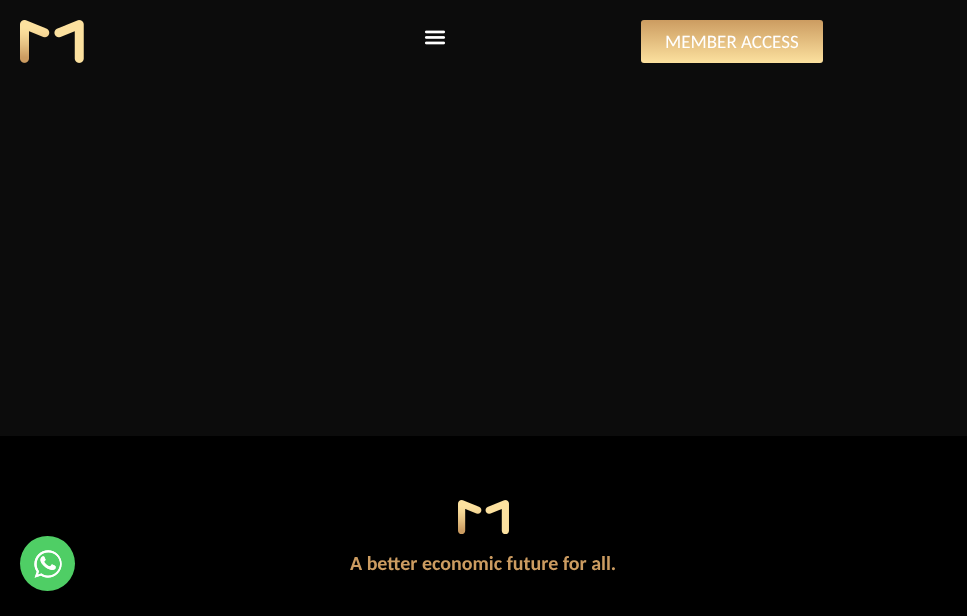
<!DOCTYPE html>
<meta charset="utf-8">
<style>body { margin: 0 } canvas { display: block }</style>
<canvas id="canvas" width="967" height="616"></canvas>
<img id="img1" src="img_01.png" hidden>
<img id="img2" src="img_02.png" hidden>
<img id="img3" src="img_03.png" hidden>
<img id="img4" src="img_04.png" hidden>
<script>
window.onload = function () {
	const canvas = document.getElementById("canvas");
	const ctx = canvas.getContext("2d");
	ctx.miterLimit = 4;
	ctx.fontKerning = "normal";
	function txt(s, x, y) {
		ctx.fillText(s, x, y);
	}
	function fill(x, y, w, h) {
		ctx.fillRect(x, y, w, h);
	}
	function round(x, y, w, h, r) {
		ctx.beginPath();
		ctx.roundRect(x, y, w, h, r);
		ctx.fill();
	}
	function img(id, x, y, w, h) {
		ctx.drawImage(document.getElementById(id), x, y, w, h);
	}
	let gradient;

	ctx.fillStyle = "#0C0C0C";
	fill(0, 0, 967, 616);
	img("img1", 20, 20, 64, 43);
	img("img2", 424, 30, 22, 15);
	gradient = ctx.createLinearGradient(732, 20, 732, 63);
	gradient.addColorStop(0, "#CC9C61");
	gradient.addColorStop(1, "#FCE19F");
	ctx.fillStyle = gradient;
	round(641, 20, 182, 43, 3);
	ctx.fillStyle = "#000000";
	fill(0, 436, 967, 180);
	ctx.fillStyle = "#4FCE65";
	ctx.beginPath();
	ctx.arc(47.5, 563.5, 27.5, 0, Math.PI * 2);
	ctx.fill();
	img("img3", 34, 550, 28, 28);
	img("img4", 458, 500, 51, 34);
	ctx.font = "19px Carlito";
	ctx.fillStyle = "#FFFFFF";
	txt("MEMBER ACCESS", 665, 48);
	ctx.font = "bold 20px Carlito";
	ctx.fillStyle = "#CC9C61";
	txt("A better economic future for all.", 350, 570);
};
</script>
